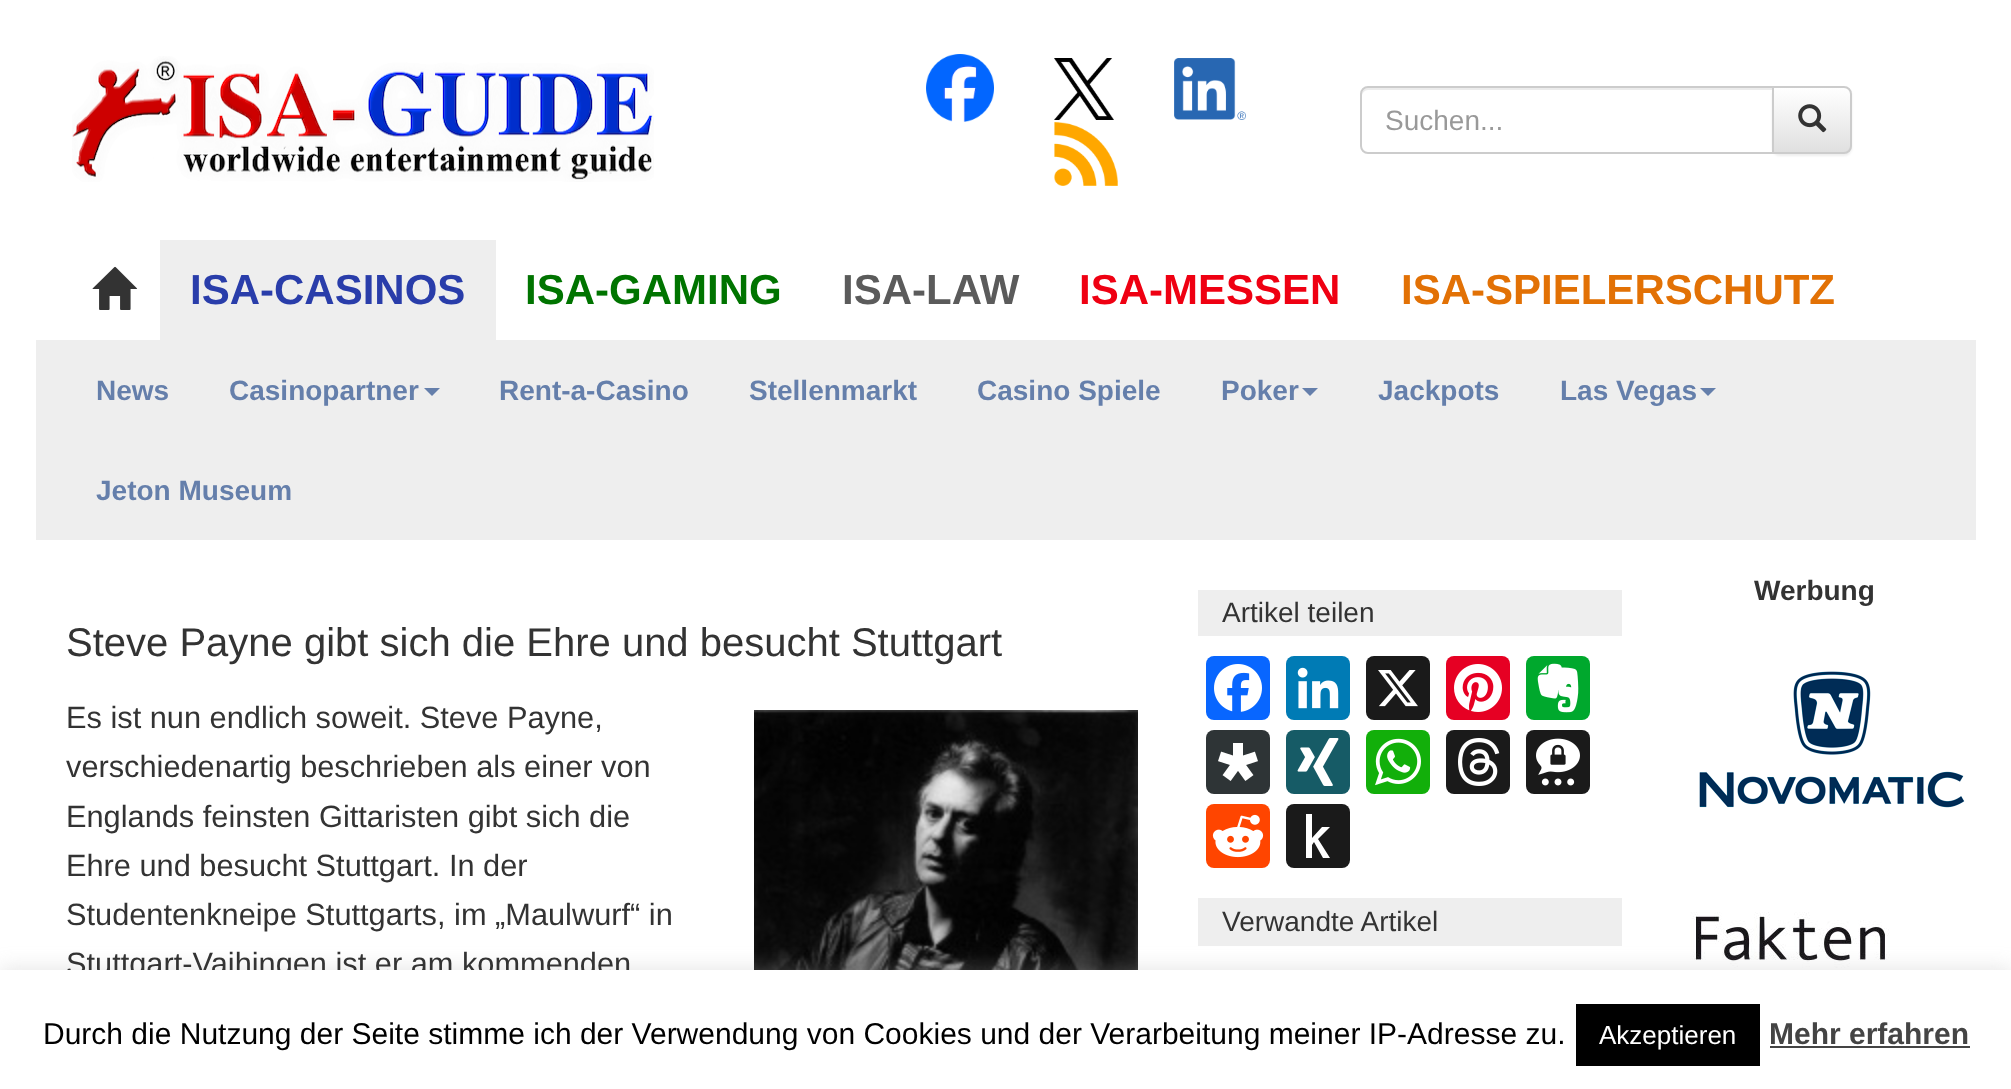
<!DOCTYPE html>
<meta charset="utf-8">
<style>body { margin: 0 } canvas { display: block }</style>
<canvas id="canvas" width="2011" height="1089"></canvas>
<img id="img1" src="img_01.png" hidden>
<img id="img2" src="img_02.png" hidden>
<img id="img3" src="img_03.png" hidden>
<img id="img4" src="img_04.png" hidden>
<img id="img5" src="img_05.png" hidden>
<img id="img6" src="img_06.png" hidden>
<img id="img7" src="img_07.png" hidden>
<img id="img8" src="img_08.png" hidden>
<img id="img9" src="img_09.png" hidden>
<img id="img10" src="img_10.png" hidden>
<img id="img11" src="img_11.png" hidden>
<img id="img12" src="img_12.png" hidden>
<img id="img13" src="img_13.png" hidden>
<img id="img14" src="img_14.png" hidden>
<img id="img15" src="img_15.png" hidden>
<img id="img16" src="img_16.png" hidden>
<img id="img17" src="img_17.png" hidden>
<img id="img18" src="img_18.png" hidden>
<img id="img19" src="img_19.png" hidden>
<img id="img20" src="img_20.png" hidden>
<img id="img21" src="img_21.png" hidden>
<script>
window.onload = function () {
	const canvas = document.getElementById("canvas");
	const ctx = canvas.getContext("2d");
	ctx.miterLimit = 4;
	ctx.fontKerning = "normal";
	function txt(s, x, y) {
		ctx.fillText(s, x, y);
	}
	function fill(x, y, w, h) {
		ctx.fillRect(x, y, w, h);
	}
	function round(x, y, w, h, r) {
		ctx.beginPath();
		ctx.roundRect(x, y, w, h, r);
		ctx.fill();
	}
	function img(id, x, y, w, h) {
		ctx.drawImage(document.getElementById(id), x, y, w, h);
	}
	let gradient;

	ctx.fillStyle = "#FFFFFF";
	fill(0, 0, 2011, 1089);
	img("img1", 72, 56, 582, 126);
	img("img2", 926, 54, 68, 68);
	img("img3", 1054, 58, 60, 62);
	img("img4", 1174, 58, 72, 62);
	img("img5", 1054, 122, 64, 64);
	ctx.fillStyle = "#ECECEC";
	ctx.beginPath();
	ctx.moveTo(1368, 90);
	ctx.lineTo(1772, 90);
	ctx.lineTo(1772, 88);
	ctx.lineTo(1368, 88);
	ctx.bezierCurveTo(1365, 88, 1362, 91, 1362, 94);
	ctx.lineTo(1362, 96);
	ctx.bezierCurveTo(1362, 93, 1365, 90, 1368, 90);
	ctx.closePath();
	ctx.fill();
	ctx.beginPath();
	ctx.roundRect(1361, 87, 412, 66, [7, 0, 0, 7]);
	ctx.strokeStyle = "#CCCCCC";
	ctx.lineWidth = 2;
	ctx.stroke();
	ctx.fillStyle = "rgba(0, 0, 0, 0.07)";
	ctx.filter = "blur(1px)";
	ctx.beginPath();
	ctx.roundRect(1772, 88, 80, 68, 8);
	ctx.fill();
	ctx.filter = "none";
	ctx.save();
	ctx.beginPath();
	ctx.roundRect(1772, 86, 80, 68, [0, 8, 8, 0]);
	ctx.clip();
	gradient = ctx.createLinearGradient(1812, 88, 1812, 152);
	gradient.addColorStop(0, "#FFFFFF");
	gradient.addColorStop(1, "#E0E0E0");
	ctx.fillStyle = gradient;
	fill(1774, 88, 78, 64);
	ctx.restore();
	ctx.beginPath();
	ctx.roundRect(1773, 87, 78, 66, [0, 7, 7, 0]);
	ctx.stroke();
	img("img6", 1798, 104, 29, 29);
	img("img7", 92, 266, 46, 44);
	ctx.fillStyle = "#EEEEEE";
	fill(160, 240, 336, 100);
	fill(36, 340, 1940, 200);
	ctx.fillStyle = "#657FAB";
	ctx.beginPath();
	ctx.moveTo(424, 388);
	ctx.lineTo(440, 388);
	ctx.lineTo(432, 396);
	ctx.closePath();
	ctx.fill();
	ctx.beginPath();
	ctx.moveTo(1302, 388);
	ctx.lineTo(1318, 388);
	ctx.lineTo(1310, 396);
	ctx.closePath();
	ctx.fill();
	ctx.beginPath();
	ctx.moveTo(1700, 388);
	ctx.lineTo(1716, 388);
	ctx.lineTo(1708, 396);
	ctx.closePath();
	ctx.fill();
	img("img8", 1699, 671, 266, 137);
	img("img9", 1690, 912, 280, 58);
	img("img10", 754, 710, 384, 260);
	ctx.fillStyle = "#EEEEEE";
	fill(1198, 590, 424, 46);
	ctx.fillStyle = "#0866FF";
	round(1206, 656, 64, 64, 8);
	img("img11", 1214, 664, 48, 48);
	ctx.fillStyle = "#007BB5";
	round(1286, 656, 64, 64, 8);
	img("img12", 1297, 667, 42, 42);
	ctx.fillStyle = "#1A1A1A";
	round(1366, 656, 64, 64, 8);
	img("img13", 1378, 670, 40, 37);
	ctx.fillStyle = "#E60023";
	round(1446, 656, 64, 64, 8);
	img("img14", 1454, 664, 48, 48);
	ctx.fillStyle = "#00A82D";
	round(1526, 656, 64, 64, 8);
	img("img15", 1537, 663, 42, 50);
	ctx.fillStyle = "#2E3436";
	round(1206, 730, 64, 64, 8);
	img("img16", 1218, 743, 40, 38);
	ctx.fillStyle = "#165B66";
	round(1286, 730, 64, 64, 8);
	img("img17", 1297, 738, 42, 48);
	ctx.fillStyle = "#12AF0A";
	round(1366, 730, 64, 64, 8);
	img("img18", 1375, 738, 46, 48);
	ctx.fillStyle = "#1A1A1A";
	round(1446, 730, 64, 64, 8);
	img("img19", 1458, 738, 42, 48);
	round(1526, 730, 64, 64, 8);
	img("img20", 1536, 738, 44, 48);
	ctx.fillStyle = "#FF4500";
	round(1206, 804, 64, 64, 8);
	img("img21", 1212, 814, 52, 44);
	ctx.fillStyle = "#1A1A1A";
	round(1286, 804, 64, 64, 8);
	ctx.fillStyle = "#FFFFFF";
	ctx.beginPath();
	ctx.moveTo(1312, 858);
	ctx.lineTo(1306, 858);
	ctx.lineTo(1306, 814);
	ctx.lineTo(1312, 814);
	ctx.lineTo(1312, 838);
	ctx.lineTo(1322, 827);
	ctx.lineTo(1330, 827);
	ctx.lineTo(1318, 839);
	ctx.lineTo(1330, 858);
	ctx.lineTo(1323, 858);
	ctx.lineTo(1314, 842);
	ctx.lineTo(1312, 845);
	ctx.closePath();
	ctx.fill();
	ctx.fillStyle = "#EEEEEE";
	fill(1198, 898, 424, 48);
	ctx.fillStyle = "rgba(172, 171, 171, 0.3)";
	ctx.filter = "blur(10px)";
	ctx.beginPath();
	ctx.rect(0, 968, 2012, 120);
	ctx.fill();
	ctx.filter = "none";
	ctx.font = "28px Liberation Sans";
	ctx.fillStyle = "#999999";
	txt("Suchen...", 1385, 130);
	ctx.font = "bold 42px Liberation Sans";
	ctx.fillStyle = "#293DAA";
	txt("ISA-CASINOS", 190, 304);
	ctx.fillStyle = "#007400";
	txt("ISA-GAMING", 525, 304);
	ctx.fillStyle = "#5B5B5B";
	txt("ISA-LAW", 842, 304);
	ctx.fillStyle = "#EF0012";
	txt("ISA-MESSEN", 1079, 304);
	ctx.fillStyle = "#E27105";
	txt("ISA-SPIELERSCHUTZ", 1401, 304);
	ctx.font = "bold 28px Liberation Sans";
	ctx.fillStyle = "#657FAB";
	txt("News", 96, 400);
	txt("Casinopartner", 229, 400);
	txt("Rent-a-Casino", 499, 400);
	txt("Stellenmarkt", 749, 400);
	txt("Casino Spiele", 977, 400);
	txt("Poker", 1221, 400);
	txt("Jackpots", 1378, 400);
	txt("Las Vegas", 1560, 400);
	txt("Jeton Museum", 96, 500);
	ctx.fillStyle = "#333333";
	txt("Werbung", 1754, 600);
	ctx.font = "40px Liberation Sans";
	txt("Steve Payne gibt sich die Ehre und besucht Stuttgart", 66, 656);
	ctx.font = "30.75px Liberation Sans";
	txt("Es ist nun endlich soweit. Steve Payne,", 66, 728);
	txt("verschiedenartig beschrieben als einer von", 66, 777);
	txt("Englands feinsten Gittaristen gibt sich die", 66, 827);
	txt("Ehre und besucht Stuttgart. In der", 66, 876);
	txt("Studentenkneipe Stuttgarts, im „Maulwurf“ in", 66, 925);
	txt("Stuttgart-Vaihingen ist er am kommenden", 66, 974);
	ctx.font = "28px Liberation Sans";
	txt("Artikel teilen", 1222, 622);
	txt("Verwandte Artikel", 1222, 931);
	ctx.fillStyle = "#FFFFFF";
	fill(0, 970, 2011, 119);
	ctx.font = "30px Liberation Sans";
	ctx.fillStyle = "#000000";
	txt("Durch die Nutzung der Seite stimme ich der Verwendung von Cookies und der Verarbeitung meiner IP-Adresse zu.", 43, 1044);
	fill(1576, 1004, 184, 62);
	ctx.font = "26px Liberation Sans";
	ctx.fillStyle = "#FFFFFF";
	txt("Akzeptieren", 1599, 1044);
	ctx.font = "bold 30px Liberation Sans";
	ctx.fillStyle = "#444444";
	txt("Mehr erfahren", 1769, 1044);
	fill(1770, 1046, 200, 2);
};
</script>
